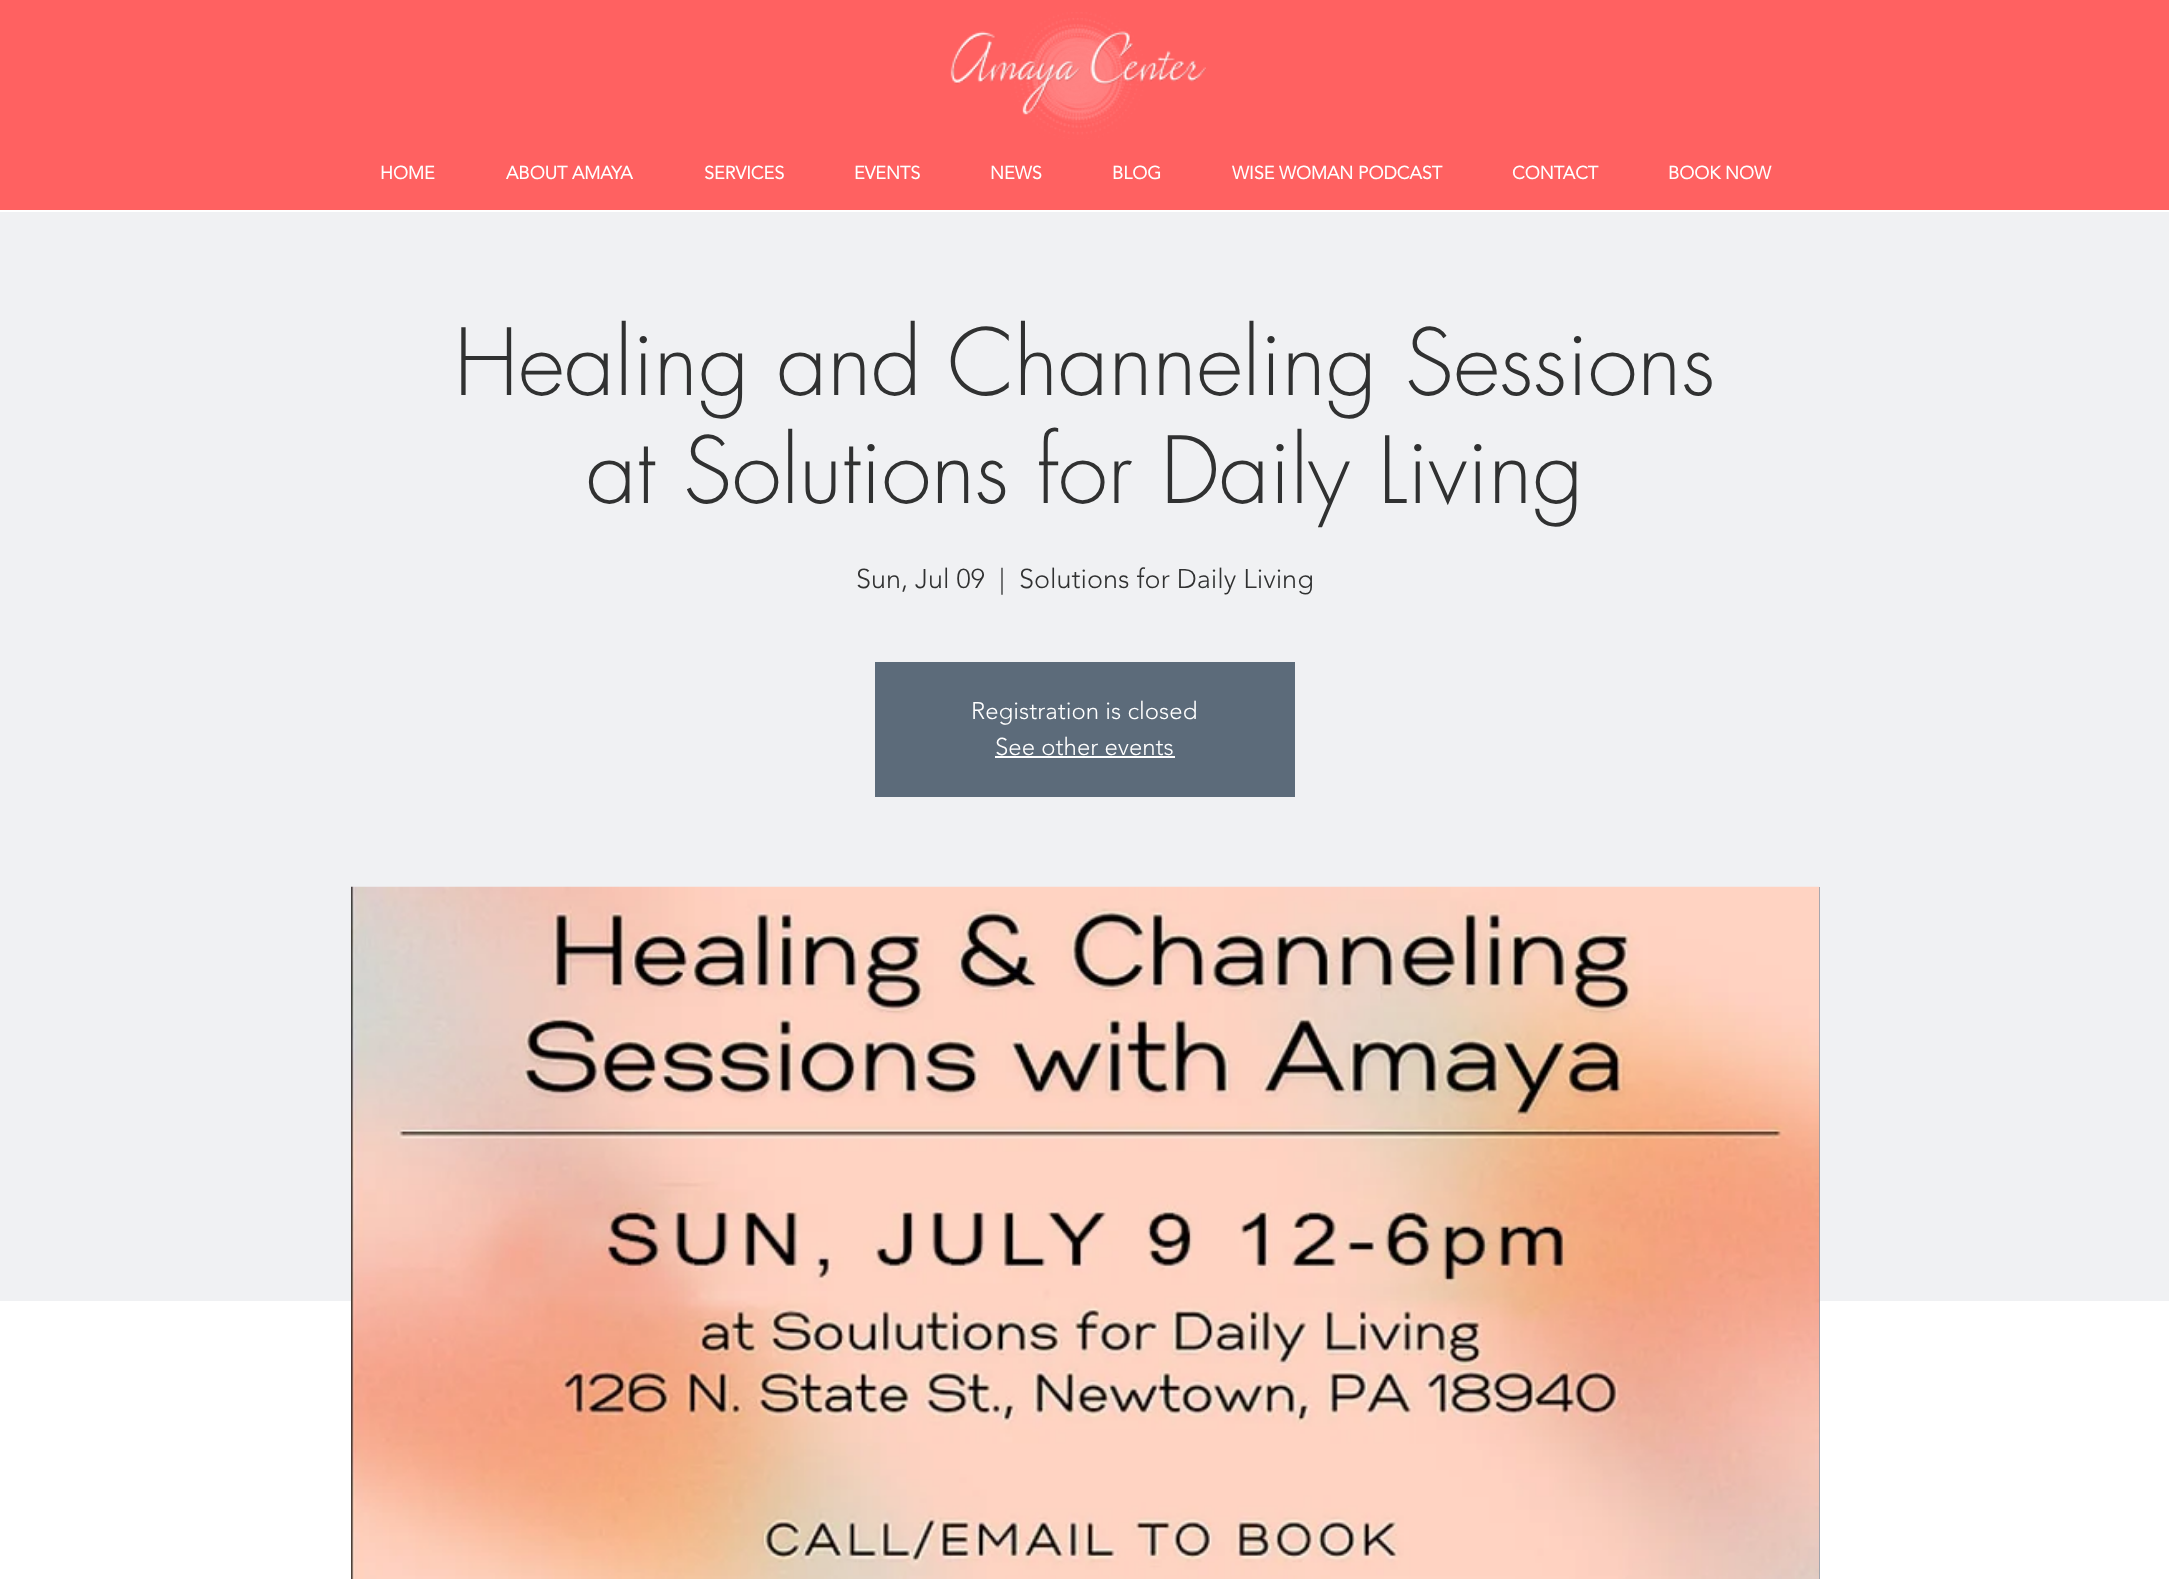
<!DOCTYPE html>
<meta charset="utf-8">
<style>body { margin: 0 } canvas { display: block }</style>
<canvas id="canvas" width="2169" height="1579"></canvas>
<img id="img1" src="img_01.png" hidden>
<img id="img2" src="img_02.png" hidden>
<script>
window.onload = function () {
	const canvas = document.getElementById("canvas");
	const ctx = canvas.getContext("2d");
	ctx.miterLimit = 4;
	ctx.fontKerning = "normal";
	function txt(s, x, y) {
		ctx.fillText(s, x, y);
	}
	function fill(x, y, w, h) {
		ctx.fillRect(x, y, w, h);
	}
	function img(id, x, y, w, h) {
		ctx.drawImage(document.getElementById(id), x, y, w, h);
	}

	ctx.fillStyle = "#FFFFFF";
	fill(0, 0, 2169, 1579);
	ctx.fillStyle = "#FF6161";
	fill(0, 0, 2169, 210);
	img("img1", 950, 12, 256, 127);
	ctx.fillStyle = "#F0F1F3";
	fill(0, 212, 2169, 1089);
	ctx.fillStyle = "#5C6B7A";
	fill(875, 662, 420, 135);
	ctx.fillStyle = "#FFFFFF";
	fill(995, 756, 180, 2);
	ctx.fillStyle = "#8B98A7";
	fill(1819, 887, 1, 692);
	img("img2", 351, 886, 1469, 693);
	ctx.font = "bold 18px 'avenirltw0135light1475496'";
	ctx.fillStyle = "#FFFFFF";
	txt("HOME", 380, 179);
	txt("ABOUT AMAYA", 506, 179);
	txt("SERVICES", 704, 179);
	txt("EVENTS", 854, 179);
	txt("NEWS", 990, 179);
	txt("BLOG", 1112, 179);
	txt("WISE WOMAN PODCAST", 1232, 179);
	txt("CONTACT", 1512, 179);
	txt("BOOK NOW", 1668, 179);
	ctx.font = "300 90px futura";
	ctx.fillStyle = "#303131";
	txt("Healing and Channeling Sessions", 454, 395);
	txt("at Solutions for Daily Living", 586, 503);
	ctx.font = "300 27px 'avenirltw0135light1475496'";
	txt("Sun, Jul 09", 856, 588);
	txt("|", 999, 588);
	txt("Solutions for Daily Living", 1019, 588);
	ctx.font = "300 24px 'avenirltw0135light1475496'";
	ctx.fillStyle = "#FFFFFF";
	txt("Registration is closed", 971, 719);
	txt("See other events", 995, 755);
};
</script>
